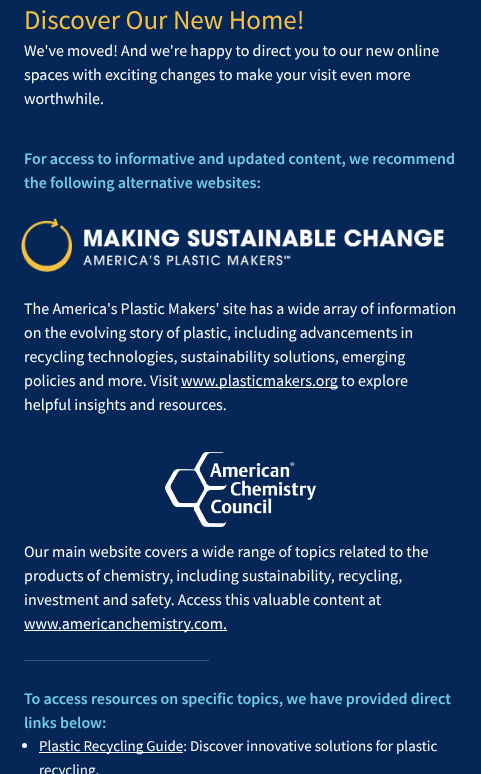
<!DOCTYPE html>
<meta charset="utf-8">
<style>body { margin: 0 } canvas { display: block }</style>
<canvas id="canvas" width="481" height="774"></canvas>
<img id="img1" src="img_01.png" hidden>
<img id="img2" src="img_02.png" hidden>
<script>
window.onload = function () {
	const canvas = document.getElementById("canvas");
	const ctx = canvas.getContext("2d");
	ctx.miterLimit = 4;
	ctx.fontKerning = "normal";
	function txt(s, x, y) {
		ctx.fillText(s, x, y);
	}
	function fill(x, y, w, h) {
		ctx.fillRect(x, y, w, h);
	}
	function img(id, x, y, w, h) {
		ctx.drawImage(document.getElementById(id), x, y, w, h);
	}

	ctx.fillStyle = "#052758";
	fill(0, 0, 481, 774);
	img("img1", 21, 218, 423, 54);
	ctx.fillStyle = "#FFFFFF";
	fill(181, 387, 157, 1);
	img("img2", 165, 452, 151, 75);
	fill(24, 630, 203, 1);
	ctx.fillStyle = "#375279";
	fill(24, 660, 185, 1);
	ctx.fillStyle = "#FFFFFF";
	ctx.beginPath();
	ctx.arc(24.5, 745.5, 2.5, 0, Math.PI * 2);
	ctx.fill();
	fill(39, 752, 144, 1);
	ctx.font = "27px Source Sans Pro";
	ctx.fillStyle = "#F6C142";
	txt("Discover Our New Home!", 24, 29);
	ctx.font = "16px Source Sans Pro";
	ctx.fillStyle = "#FFFFFF";
	txt("We've moved! And we're happy to direct you to our new online", 24, 56);
	txt("spaces with exciting changes to make your visit even more", 24, 80);
	txt("worthwhile.", 24, 104);
	ctx.font = "600 16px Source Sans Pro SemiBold";
	ctx.fillStyle = "#70CBE8";
	txt("For access to informative and updated content, we recommend", 24, 164);
	txt("the following alternative websites:", 24, 188);
	ctx.font = "16px Source Sans Pro";
	ctx.fillStyle = "#FFFFFF";
	txt("The America's Plastic Makers' site has a wide array of information", 24, 314);
	txt("on the evolving story of plastic, including advancements in", 24, 338);
	txt("recycling technologies, sustainability solutions, emerging", 24, 362);
	txt("policies and more. Visit", 24, 386);
	txt("www.plasticmakers.org to explore", 181, 386);
	txt("helpful insights and resources.", 24, 410);
	txt("Our main website covers a wide range of topics related to the", 24, 557);
	txt("products of chemistry, including sustainability, recycling,", 24, 581);
	txt("investment and safety. Access this valuable content at", 24, 605);
	txt("www.americanchemistry.com.", 24, 629);
	ctx.font = "600 16px Source Sans Pro SemiBold";
	ctx.fillStyle = "#70CBE8";
	txt("To access resources on specific topics, we have provided direct", 24, 704);
	txt("links below:", 24, 728);
	ctx.font = "15px Source Sans Pro";
	ctx.fillStyle = "#FFFFFF";
	txt("Plastic Recycling Guide: Discover innovative solutions for plastic", 39, 751);
	txt("recycling.", 39, 775);
};
</script>
